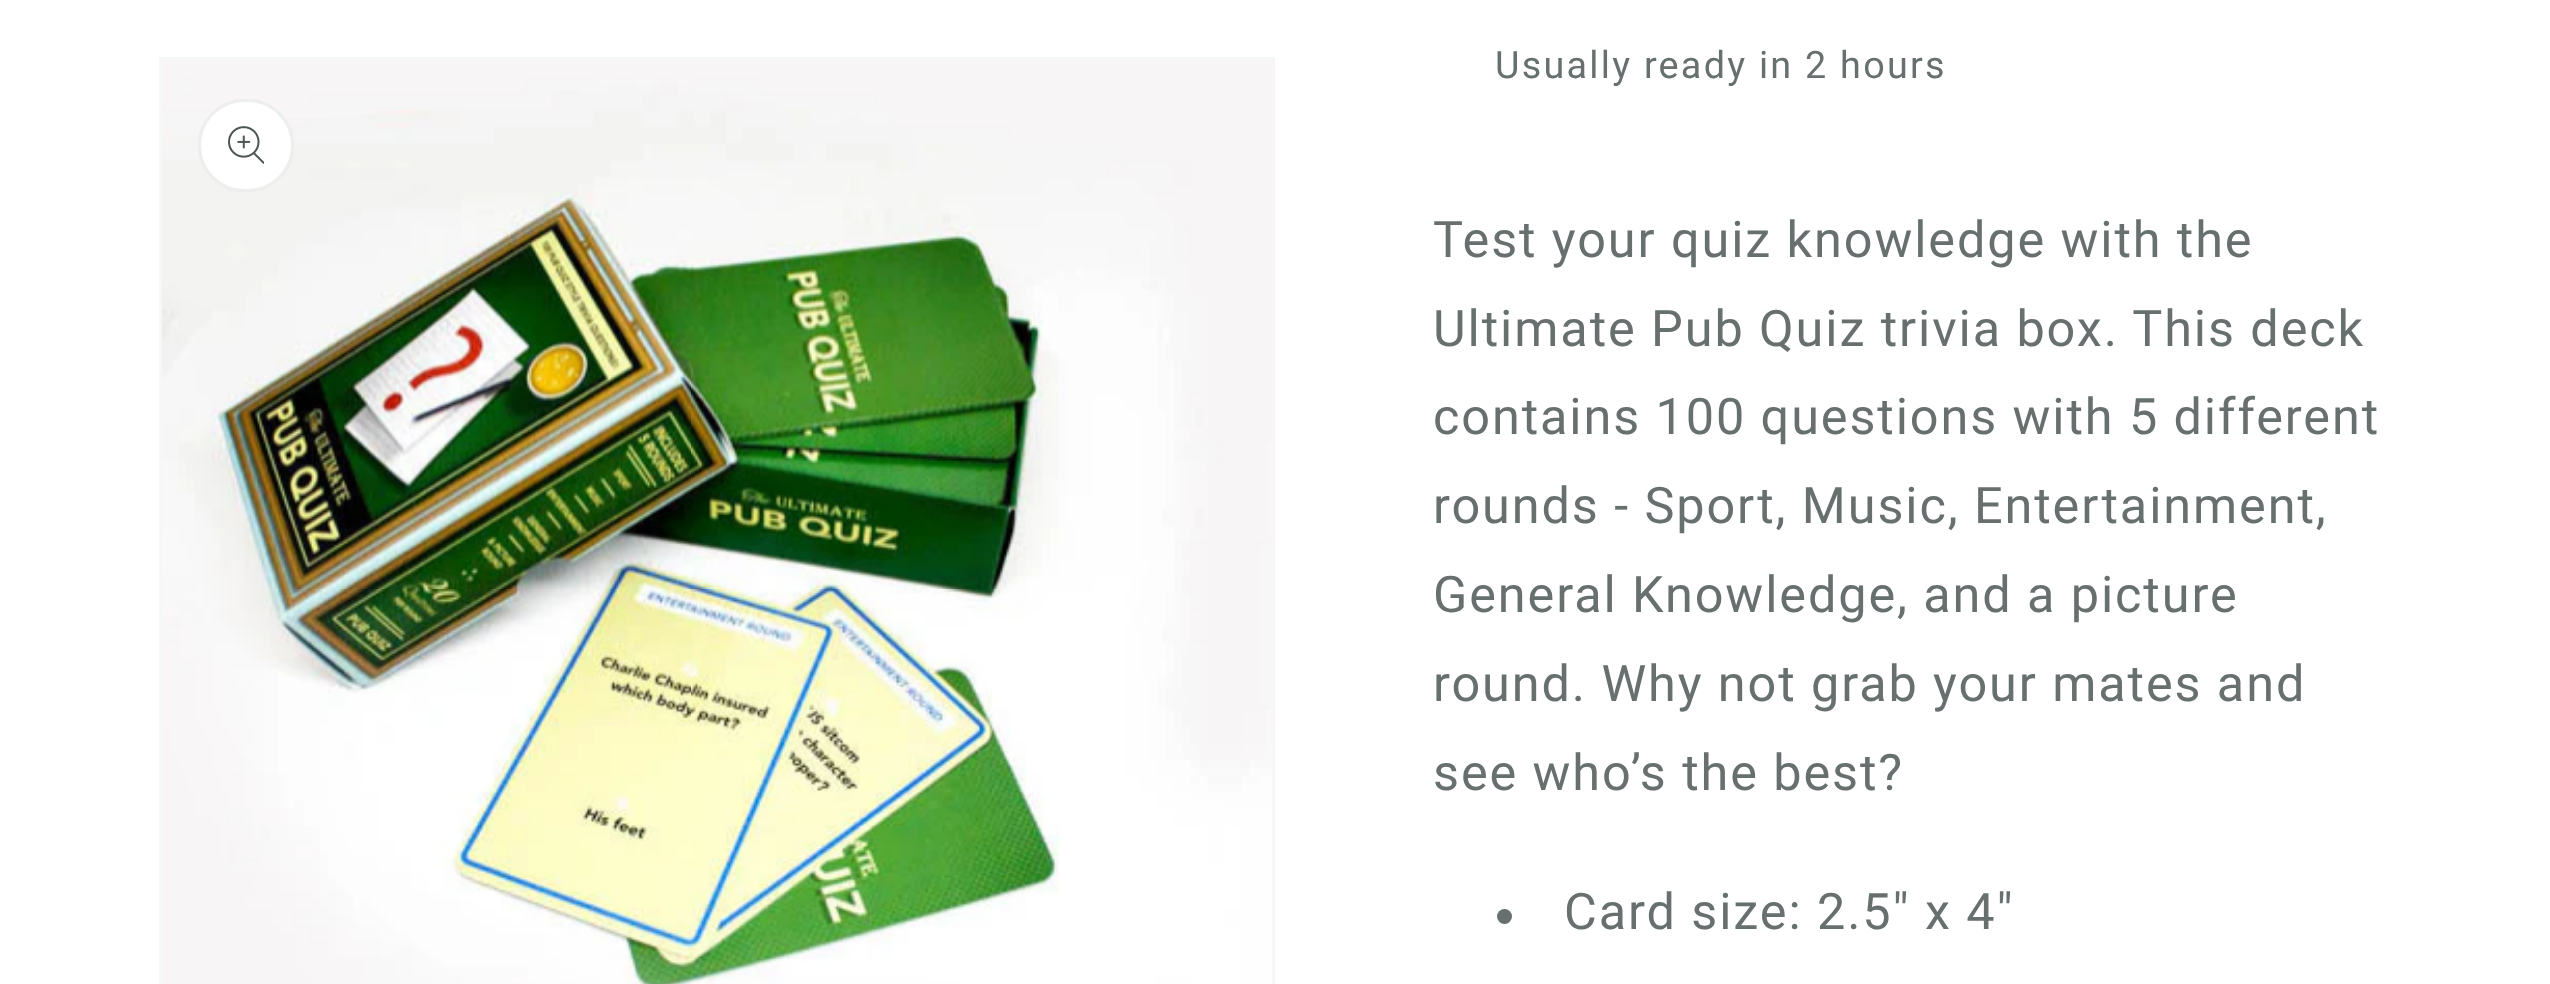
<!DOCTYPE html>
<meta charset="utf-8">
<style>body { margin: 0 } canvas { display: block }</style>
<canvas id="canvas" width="2550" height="984"></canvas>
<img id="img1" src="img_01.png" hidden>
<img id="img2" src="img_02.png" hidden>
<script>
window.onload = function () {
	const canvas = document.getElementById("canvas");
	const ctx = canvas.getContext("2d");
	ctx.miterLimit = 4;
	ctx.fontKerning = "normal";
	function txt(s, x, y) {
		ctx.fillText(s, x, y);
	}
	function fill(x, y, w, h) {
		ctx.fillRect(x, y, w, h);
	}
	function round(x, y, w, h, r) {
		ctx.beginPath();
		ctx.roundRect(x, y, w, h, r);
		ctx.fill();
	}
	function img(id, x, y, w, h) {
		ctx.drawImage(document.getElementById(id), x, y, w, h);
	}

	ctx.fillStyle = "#FFFFFF";
	fill(0, 0, 2550, 984);
	ctx.strokeStyle = "#F6F7F7";
	ctx.lineWidth = 3;
	ctx.strokeRect(160.5, 58.5, 1113, 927);
	img("img1", 162, 60, 1110, 924);
	round(198, 99, 96, 93, 46.5);
	ctx.beginPath();
	ctx.roundRect(199.5, 100.5, 93, 90, 45);
	ctx.strokeStyle = "rgba(77, 85, 85, 0.1)";
	ctx.stroke();
	img("img2", 228, 126, 36, 38);
	ctx.fillStyle = "#686F6F";
	ctx.beginPath();
	ctx.arc(1504.5, 916.5, 7.5, 0, Math.PI * 2);
	ctx.fill();
	ctx.letterSpacing = "2.25px";
	ctx.font = "37.75px Roboto";
	txt("Usually ready in 2 hours", 1495, 78);
	ctx.letterSpacing = "1.9px";
	ctx.font = "50.4px Roboto";
	txt("Test your quiz knowledge with the", 1433, 257);
	txt("Ultimate Pub Quiz trivia box. This deck", 1433, 346);
	txt("contains 100 questions with 5 different", 1433, 434);
	txt("rounds - Sport, Music, Entertainment,", 1433, 523);
	txt("General Knowledge, and a picture", 1433, 612);
	txt("round. Why not grab your mates and", 1433, 701);
	txt("see who’s the best?", 1433, 790);
	txt("Card size: 2.5\" x 4\"", 1564, 929);
};
</script>
